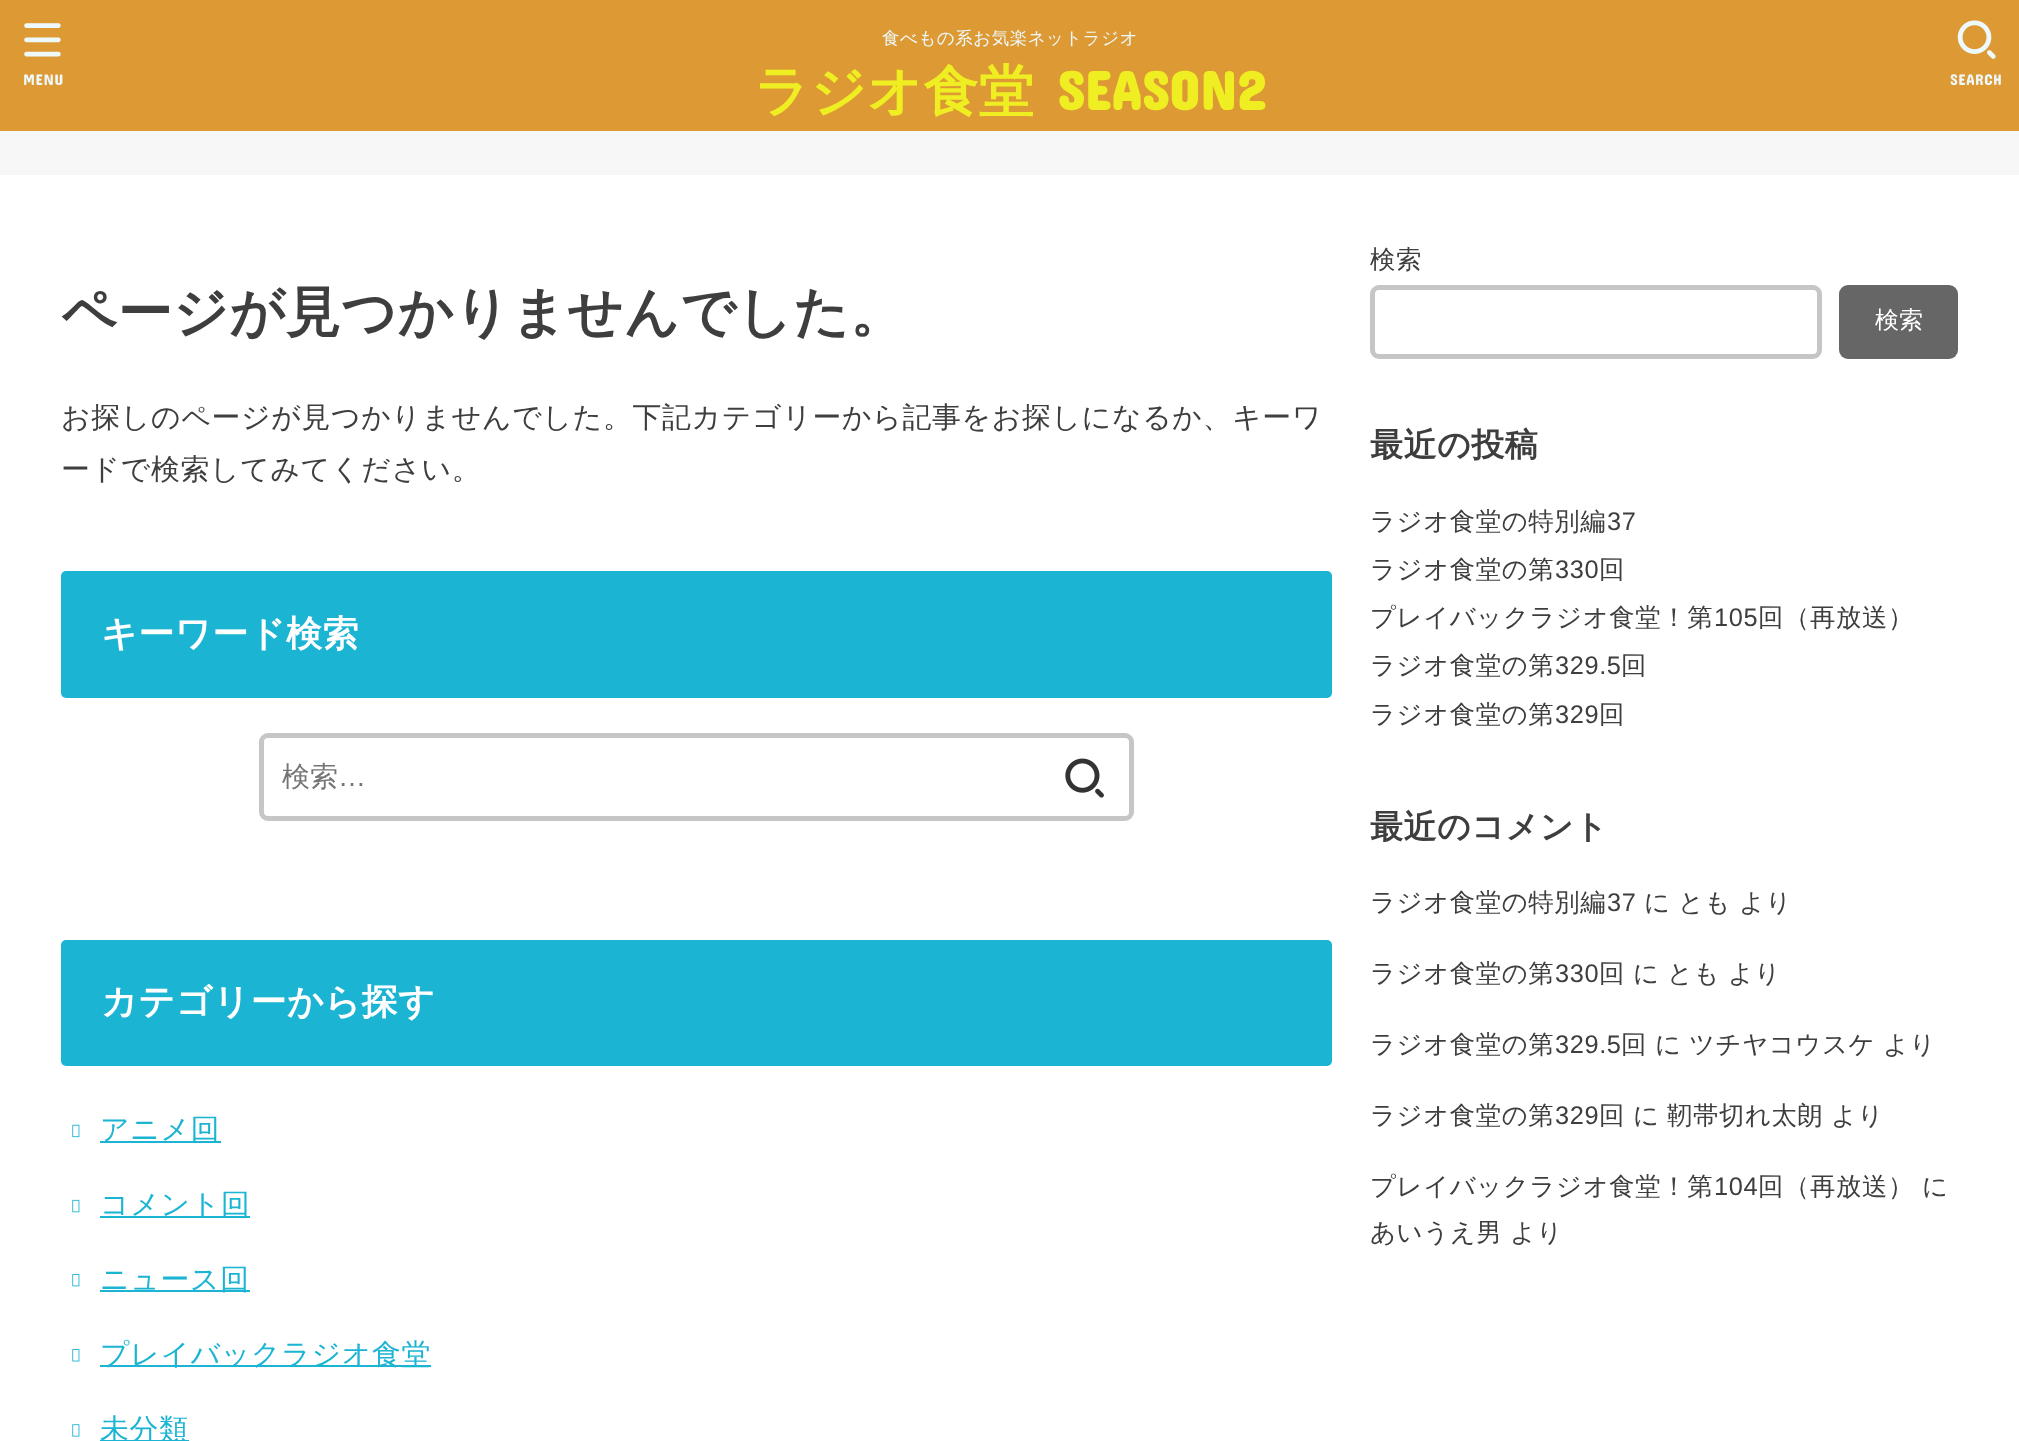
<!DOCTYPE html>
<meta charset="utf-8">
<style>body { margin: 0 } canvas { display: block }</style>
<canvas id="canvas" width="2019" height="1441"></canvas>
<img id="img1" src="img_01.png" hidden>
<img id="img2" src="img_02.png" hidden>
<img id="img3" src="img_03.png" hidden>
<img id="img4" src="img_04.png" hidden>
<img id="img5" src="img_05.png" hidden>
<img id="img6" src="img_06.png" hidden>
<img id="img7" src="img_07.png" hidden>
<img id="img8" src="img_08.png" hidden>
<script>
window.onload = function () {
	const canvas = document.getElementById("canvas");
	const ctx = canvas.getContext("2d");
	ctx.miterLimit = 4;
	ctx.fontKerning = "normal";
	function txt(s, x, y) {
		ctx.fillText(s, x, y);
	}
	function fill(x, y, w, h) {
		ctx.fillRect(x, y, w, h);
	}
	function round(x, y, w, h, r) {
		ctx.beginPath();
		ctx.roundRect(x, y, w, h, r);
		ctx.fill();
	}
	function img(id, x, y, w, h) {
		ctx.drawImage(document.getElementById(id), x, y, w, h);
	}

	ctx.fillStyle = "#F7F7F7";
	fill(0, 0, 2019, 1441);
	ctx.fillStyle = "#DD9933";
	fill(0, 0, 2019, 131);
	img("img1", 24, 23, 37, 34);
	img("img2", 1957, 20, 39, 39);
	ctx.fillStyle = "#FFFFFF";
	fill(0, 175, 2019, 1266);
	ctx.fillStyle = "#1BB4D3";
	round(61, 571, 1271, 127, 5);
	ctx.beginPath();
	ctx.roundRect(261.5, 735.5, 870, 83, 6.5);
	ctx.strokeStyle = "#C6C6C6";
	ctx.lineWidth = 5;
	ctx.stroke();
	img("img3", 1065, 758, 39, 40);
	round(61, 940, 1271, 126, 5);
	img("img4", 72, 1124, 8, 14);
	fill(100, 1141, 121, 2);
	img("img5", 72, 1199, 8, 14);
	fill(100, 1216, 150, 2);
	img("img6", 72, 1274, 8, 13);
	fill(100, 1290, 150, 2);
	img("img7", 72, 1349, 8, 13);
	fill(100, 1365, 331, 2);
	img("img8", 72, 1424, 8, 13);
	fill(100, 1440, 89, 1);
	ctx.beginPath();
	ctx.roundRect(1372.5, 287.5, 447, 69, 6.5);
	ctx.stroke();
	ctx.fillStyle = "#666666";
	round(1839, 285, 119, 74, 9);
	ctx.letterSpacing = "0.5px";
	ctx.font = "15.5px Concert One";
	ctx.fillStyle = "#EDF9FC";
	txt("MENU", 23, 85);
	ctx.font = "500 17.5px WenQuanYi Zen Hei";
	txt("食べもの系お気楽ネットラジオ", 882, 44);
	ctx.font = "bold 54.75px WenQuanYi Zen Hei";
	ctx.fillStyle = "#EEEE22";
	txt("ラジオ食堂", 754, 110);
	ctx.font = "bold 54.75px Concert One";
	txt("SEASON2", 1057, 110);
	ctx.font = "15.5px Concert One";
	ctx.fillStyle = "#EDF9FC";
	txt("SEARCH", 1950, 85);
	ctx.font = "bold 54.75px WenQuanYi Zen Hei";
	ctx.fillStyle = "#3E3E3E";
	txt("ページが見つかりませんでした。", 61, 331);
	ctx.letterSpacing = "0.7px";
	ctx.font = "500 28.85px WenQuanYi Zen Hei";
	txt("お探しのページが見つかりませんでした。下記カテゴリーから記事をお探しになるか、キーワ", 61, 427);
	txt("ードで検索してみてください。", 61, 479);
	ctx.letterSpacing = "0.5px";
	ctx.font = "bold 36px WenQuanYi Zen Hei";
	ctx.fillStyle = "#FFFFFF";
	txt("キーワード検索", 101, 646);
	ctx.letterSpacing = "0px";
	ctx.font = "500 28px WenQuanYi Zen Hei";
	ctx.fillStyle = "#757575";
	txt("検索", 282, 786);
	ctx.font = "28px Liberation Sans";
	txt("…", 338, 786);
	ctx.letterSpacing = "0.5px";
	ctx.font = "bold 36px WenQuanYi Zen Hei";
	ctx.fillStyle = "#FFFFFF";
	txt("カテゴリーから探す", 101, 1014);
	ctx.letterSpacing = "0.7px";
	ctx.font = "500 28.85px WenQuanYi Zen Hei";
	ctx.fillStyle = "#1BB4D3";
	txt("アニメ回", 100, 1139);
	txt("コメント回", 100, 1214);
	txt("ニュース回", 100, 1289);
	txt("プレイバックラジオ食堂", 100, 1364);
	txt("未分類", 100, 1439);
	ctx.letterSpacing = "0.5px";
	ctx.font = "500 25.4px WenQuanYi Zen Hei";
	ctx.fillStyle = "#3E3E3E";
	txt("検索", 1370, 268);
	ctx.letterSpacing = "0px";
	ctx.font = "500 24px WenQuanYi Zen Hei";
	ctx.fillStyle = "#FFFFFF";
	txt("検索", 1875, 328);
	ctx.letterSpacing = "0.5px";
	ctx.font = "bold 33px WenQuanYi Zen Hei";
	ctx.fillStyle = "#3E3E3E";
	txt("最近の投稿", 1370, 456);
	ctx.letterSpacing = "0.6px";
	ctx.font = "500 25.4px WenQuanYi Zen Hei";
	txt("ラジオ食堂の特別編", 1370, 530);
	ctx.font = "25.4px Liberation Sans";
	txt("37", 1607, 530);
	ctx.font = "500 25.4px WenQuanYi Zen Hei";
	txt("ラジオ食堂の第", 1370, 578);
	ctx.font = "25.4px Liberation Sans";
	txt("330", 1555, 578);
	ctx.font = "500 25.4px WenQuanYi Zen Hei";
	txt("回", 1599, 578);
	txt("プレイバックラジオ食堂！第", 1370, 626);
	ctx.font = "25.4px Liberation Sans";
	txt("105", 1714, 626);
	ctx.font = "500 25.4px WenQuanYi Zen Hei";
	txt("回（再放送）", 1758, 626);
	txt("ラジオ食堂の第", 1370, 674);
	ctx.font = "25.4px Liberation Sans";
	txt("329.5", 1555, 674);
	ctx.font = "500 25.4px WenQuanYi Zen Hei";
	txt("回", 1621, 674);
	txt("ラジオ食堂の第", 1370, 723);
	ctx.font = "25.4px Liberation Sans";
	txt("329", 1555, 723);
	ctx.font = "500 25.4px WenQuanYi Zen Hei";
	txt("回", 1599, 723);
	ctx.letterSpacing = "0.5px";
	ctx.font = "bold 33px WenQuanYi Zen Hei";
	txt("最近のコメント", 1370, 838);
	ctx.letterSpacing = "0.6px";
	ctx.font = "500 25.4px WenQuanYi Zen Hei";
	txt("ラジオ食堂の特別編", 1370, 911);
	ctx.font = "25.4px Liberation Sans";
	txt("37", 1607, 911);
	ctx.font = "500 25.4px WenQuanYi Zen Hei";
	txt("に", 1644, 911);
	txt("とも", 1678, 911);
	txt("より", 1739, 911);
	txt("ラジオ食堂の第", 1370, 982);
	ctx.font = "25.4px Liberation Sans";
	txt("330", 1555, 982);
	ctx.font = "500 25.4px WenQuanYi Zen Hei";
	txt("回", 1599, 982);
	txt("に", 1633, 982);
	txt("とも", 1667, 982);
	txt("より", 1728, 982);
	txt("ラジオ食堂の第", 1370, 1053);
	ctx.font = "25.4px Liberation Sans";
	txt("329.5", 1555, 1053);
	ctx.font = "500 25.4px WenQuanYi Zen Hei";
	txt("回", 1621, 1053);
	txt("に", 1655, 1053);
	txt("ツチヤコウスケ", 1689, 1053);
	txt("より", 1883, 1053);
	txt("ラジオ食堂の第", 1370, 1124);
	ctx.font = "25.4px Liberation Sans";
	txt("329", 1555, 1124);
	ctx.font = "500 25.4px WenQuanYi Zen Hei";
	txt("回", 1599, 1124);
	txt("に", 1633, 1124);
	txt("靭帯切れ太朗", 1667, 1124);
	txt("より", 1831, 1124);
	txt("プレイバックラジオ食堂！第", 1370, 1195);
	ctx.font = "25.4px Liberation Sans";
	txt("104", 1714, 1195);
	ctx.font = "500 25.4px WenQuanYi Zen Hei";
	txt("回（再放送）", 1758, 1195);
	txt("に", 1922, 1195);
	txt("あいうえ男", 1370, 1241);
	txt("より", 1510, 1241);
};
</script>
